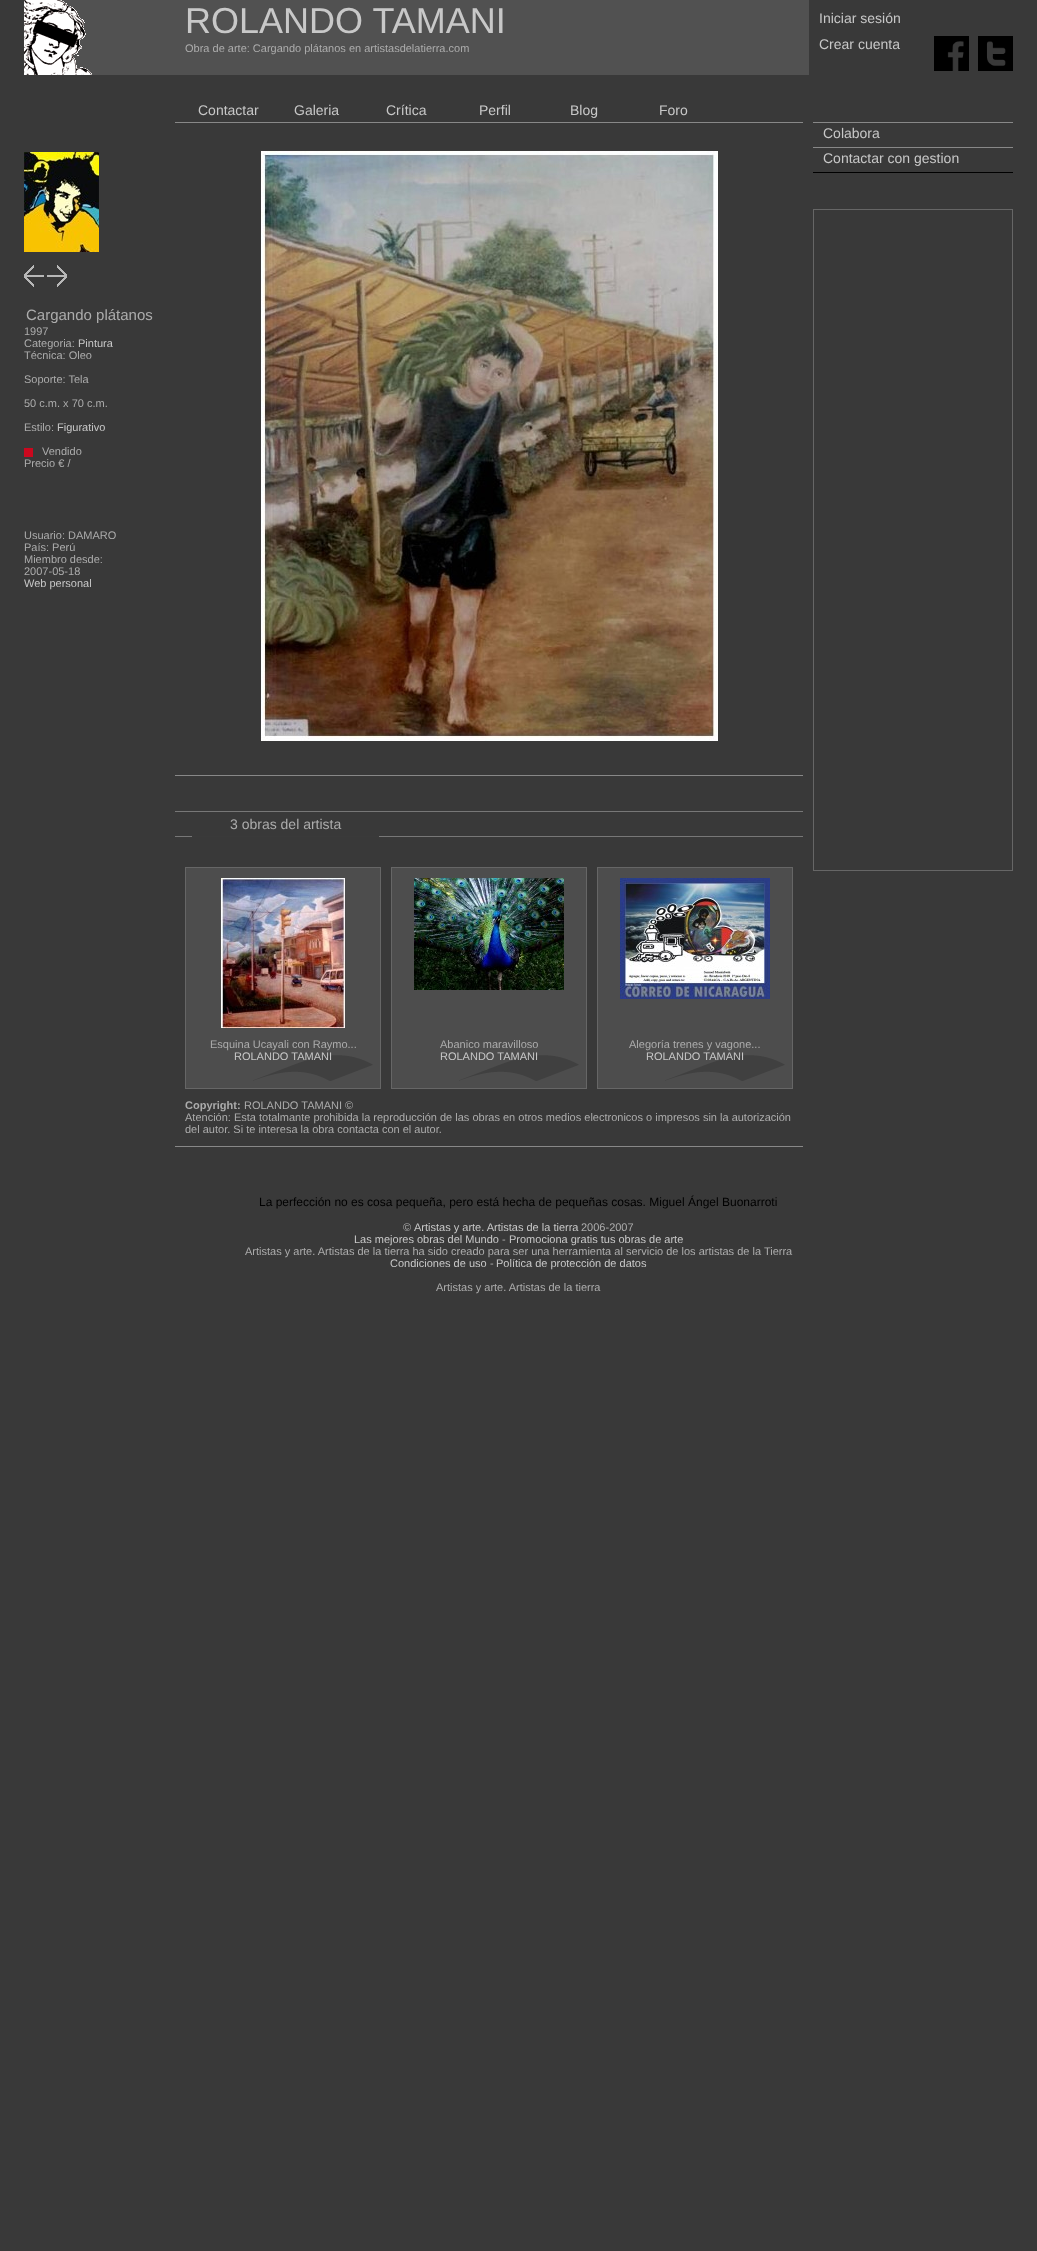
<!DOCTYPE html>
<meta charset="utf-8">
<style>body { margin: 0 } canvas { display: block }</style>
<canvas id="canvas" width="1037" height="2251"></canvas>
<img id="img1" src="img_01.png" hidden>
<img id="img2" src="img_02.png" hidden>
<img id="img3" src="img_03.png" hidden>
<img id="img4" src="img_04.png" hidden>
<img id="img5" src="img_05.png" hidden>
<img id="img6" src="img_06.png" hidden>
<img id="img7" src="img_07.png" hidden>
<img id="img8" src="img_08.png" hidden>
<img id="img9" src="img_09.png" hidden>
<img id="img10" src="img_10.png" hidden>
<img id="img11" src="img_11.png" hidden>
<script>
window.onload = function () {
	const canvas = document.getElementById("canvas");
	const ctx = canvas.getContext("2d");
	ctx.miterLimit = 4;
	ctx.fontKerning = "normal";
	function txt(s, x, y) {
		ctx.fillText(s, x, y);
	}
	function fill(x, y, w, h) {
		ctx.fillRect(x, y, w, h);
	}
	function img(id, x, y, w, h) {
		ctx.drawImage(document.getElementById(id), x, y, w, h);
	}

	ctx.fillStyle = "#393939";
	fill(0, 0, 1037, 2251);
	ctx.fillStyle = "#515151";
	fill(62, 0, 747, 75);
	img("img1", 24, 0, 68, 75);
	img("img2", 934, 36, 35, 35);
	img("img3", 978, 36, 35, 35);
	ctx.fillStyle = "#888888";
	fill(175, 122, 628, 1);
	fill(175, 775, 628, 1);
	img("img4", 261, 151, 457, 590);
	ctx.fillStyle = "#777777";
	fill(175, 811, 628, 1);
	fill(175, 836, 628, 1);
	ctx.fillStyle = "#3A3A3A";
	fill(192, 836, 187, 1);
	ctx.fillStyle = "#888888";
	fill(175, 1146, 628, 1);
	ctx.fillStyle = "#4D4D4D";
	fill(186, 868, 194, 220);
	img("img5", 253, 1055, 120, 26);
	ctx.strokeStyle = "#666666";
	ctx.strokeRect(185.5, 867.5, 195, 221);
	img("img6", 221, 878, 124, 150);
	fill(392, 868, 194, 220);
	img("img5", 459, 1055, 120, 26);
	ctx.strokeRect(391.5, 867.5, 195, 221);
	img("img7", 414, 878, 150, 112);
	fill(598, 868, 194, 220);
	img("img5", 665, 1055, 120, 26);
	ctx.strokeRect(597.5, 867.5, 195, 221);
	img("img8", 620, 878, 150, 121);
	ctx.fillStyle = "#000000";
	fill(813, 172, 200, 1);
	ctx.fillStyle = "#888888";
	fill(813, 122, 200, 1);
	fill(813, 147, 200, 1);
	ctx.strokeRect(813.5, 209.5, 199, 661);
	img("img9", 24, 152, 75, 100);
	img("img10", 24, 265, 20, 22);
	img("img11", 47, 265, 20, 22);
	ctx.fillStyle = "#CB081E";
	fill(24, 448, 9, 9);
	ctx.font = "36px Liberation Sans";
	ctx.fillStyle = "#C8C8C8";
	txt("ROLANDO TAMANI", 185, 33);
	ctx.font = "11px Liberation Sans";
	ctx.fillStyle = "#ACACAC";
	txt("Obra de arte: Cargando plátanos en artistasdelatierra.com", 185, 52);
	ctx.font = "14px Liberation Sans";
	ctx.fillStyle = "#C8C8C8";
	txt("Iniciar sesión", 819, 23);
	txt("Crear cuenta", 819, 49);
	txt("Contactar", 198, 115);
	txt("Galeria", 294, 115);
	txt("Crítica", 386, 115);
	txt("Perfil", 479, 115);
	txt("Blog", 570, 115);
	txt("Foro", 659, 115);
	ctx.fillStyle = "#ACACAC";
	txt("3 obras del artista", 230, 829);
	ctx.font = "11px Liberation Sans";
	txt("Esquina Ucayali con Raymo...", 210, 1048);
	ctx.fillStyle = "#C8C8C8";
	txt("ROLANDO TAMANI", 234, 1060);
	ctx.fillStyle = "#ACACAC";
	txt("Abanico maravilloso", 440, 1048);
	ctx.fillStyle = "#C8C8C8";
	txt("ROLANDO TAMANI", 440, 1060);
	ctx.fillStyle = "#ACACAC";
	txt("Alegoría trenes y vagone...", 629, 1048);
	ctx.fillStyle = "#C8C8C8";
	txt("ROLANDO TAMANI", 646, 1060);
	ctx.font = "bold 11px Liberation Sans";
	ctx.fillStyle = "#ACACAC";
	txt("Copyright:", 185, 1109);
	ctx.font = "11px Liberation Sans";
	txt("ROLANDO TAMANI ©", 244, 1109);
	txt("Atención: Esta totalmante prohibida la reproducción de las obras en otros medios electronicos o impresos sin la autorización", 185, 1121);
	txt("del autor. Si te interesa la obra contacta con el autor.", 185, 1133);
	ctx.font = "14px Liberation Sans";
	ctx.fillStyle = "#C8C8C8";
	txt("Colabora", 823, 138);
	txt("Contactar con gestion", 823, 163);
	ctx.font = "15px Liberation Sans";
	ctx.fillStyle = "#ACACAC";
	txt("Cargando plátanos", 26, 320);
	ctx.font = "11px Liberation Sans";
	txt("1997", 24, 335);
	txt("Categoria:", 24, 347);
	ctx.fillStyle = "#C8C8C8";
	txt("Pintura", 78, 347);
	ctx.fillStyle = "#ACACAC";
	txt("Técnica: Oleo", 24, 359);
	txt("Soporte: Tela", 24, 383);
	txt("50 c.m. x 70 c.m.", 24, 407);
	txt("Estilo:", 24, 431);
	ctx.fillStyle = "#C8C8C8";
	txt("Figurativo", 57, 431);
	ctx.fillStyle = "#ACACAC";
	txt("Vendido", 42, 455);
	txt("Precio € /", 24, 467);
	txt("Usuario: DAMARO", 24, 539);
	txt("País: Perú", 24, 551);
	txt("Miembro desde:", 24, 563);
	txt("2007-05-18", 24, 575);
	ctx.fillStyle = "#C8C8C8";
	txt("Web personal", 24, 587);
	ctx.font = "12px Liberation Sans";
	ctx.fillStyle = "#000000";
	txt("La perfección no es cosa pequeña, pero está hecha de pequeñas cosas. Miguel Ángel Buonarroti", 259, 1206);
	ctx.font = "11px Liberation Sans";
	ctx.fillStyle = "#ACACAC";
	txt("©", 403, 1231);
	ctx.fillStyle = "#C8C8C8";
	txt("Artistas y arte. Artistas de la tierra", 414, 1231);
	ctx.fillStyle = "#ACACAC";
	txt("2006-2007", 581, 1231);
	ctx.fillStyle = "#C8C8C8";
	txt("Las mejores obras del Mundo", 354, 1243);
	ctx.fillStyle = "#ACACAC";
	txt("-", 502, 1243);
	ctx.fillStyle = "#C8C8C8";
	txt("Promociona gratis tus obras de arte", 509, 1243);
	ctx.fillStyle = "#ACACAC";
	txt("Artistas y arte. Artistas de la tierra ha sido creado para ser una herramienta al servicio de los artistas de la Tierra", 245, 1255);
	ctx.fillStyle = "#C8C8C8";
	txt("Condiciones de uso", 390, 1267);
	ctx.fillStyle = "#ACACAC";
	txt("-", 490, 1267);
	ctx.fillStyle = "#C8C8C8";
	txt("Política de protección de datos", 496, 1267);
	ctx.fillStyle = "#ACACAC";
	txt("Artistas y arte. Artistas de la tierra", 436, 1291);
};
</script>
